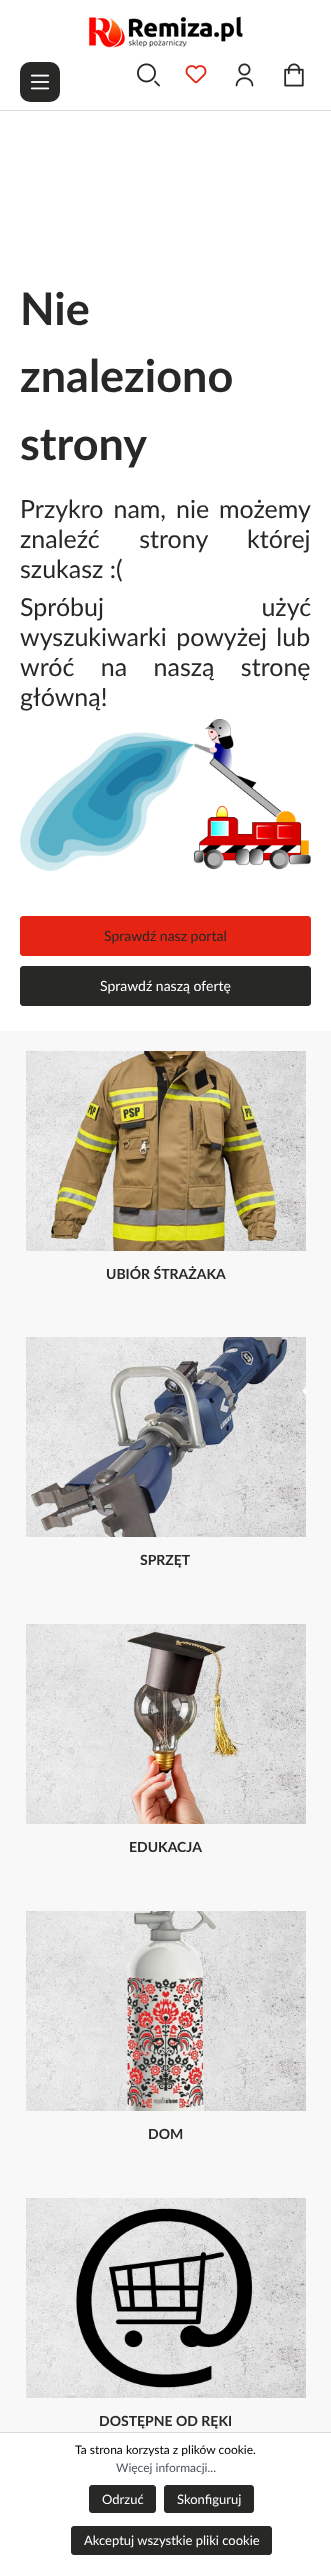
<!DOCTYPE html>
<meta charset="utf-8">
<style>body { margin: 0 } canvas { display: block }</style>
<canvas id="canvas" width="331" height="2568"></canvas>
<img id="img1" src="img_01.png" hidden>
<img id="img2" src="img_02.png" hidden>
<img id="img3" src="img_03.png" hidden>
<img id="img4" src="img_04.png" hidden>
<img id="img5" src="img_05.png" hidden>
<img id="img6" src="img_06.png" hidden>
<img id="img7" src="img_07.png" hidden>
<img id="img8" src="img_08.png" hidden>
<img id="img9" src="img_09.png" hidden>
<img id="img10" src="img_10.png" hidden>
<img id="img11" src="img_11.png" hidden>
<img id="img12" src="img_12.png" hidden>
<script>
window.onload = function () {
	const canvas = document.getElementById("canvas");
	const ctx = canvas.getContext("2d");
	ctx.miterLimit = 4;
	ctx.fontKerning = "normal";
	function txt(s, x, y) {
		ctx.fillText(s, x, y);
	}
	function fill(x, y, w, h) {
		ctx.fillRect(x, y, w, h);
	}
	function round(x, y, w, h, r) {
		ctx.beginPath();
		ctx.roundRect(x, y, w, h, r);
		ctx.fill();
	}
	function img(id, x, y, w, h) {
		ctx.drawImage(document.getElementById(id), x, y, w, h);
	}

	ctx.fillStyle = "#FFFFFF";
	fill(0, 0, 331, 2568);
	ctx.fillStyle = "#DBDBDB";
	fill(0, 110, 331, 1);
	img("img1", 89, 16, 154, 32);
	ctx.fillStyle = "#282827";
	round(20, 62, 40, 40, 10);
	img("img2", 30, 74, 20, 16);
	img("img3", 137, 63, 23, 24);
	img("img4", 185, 65, 22, 19);
	img("img5", 235, 63, 19, 24);
	img("img6", 284, 63, 20, 24);
	img("img7", 20, 719, 291, 152);
	ctx.fillStyle = "#E52413";
	ctx.beginPath();
	ctx.roundRect(20.5, 916.5, 290, 39, 2.5);
	ctx.fill();
	ctx.strokeStyle = "#E52413";
	ctx.stroke();
	ctx.fillStyle = "#282827";
	ctx.beginPath();
	ctx.roundRect(20.5, 966.5, 290, 39, 2.5);
	ctx.fill();
	ctx.strokeStyle = "#282827";
	ctx.stroke();
	ctx.fillStyle = "#F8F8F8";
	fill(0, 1031, 331, 1401);
	img("img8", 26, 1051, 280, 200);
	img("img9", 26, 1337, 280, 200);
	img("img10", 26, 1624, 280, 200);
	img("img11", 26, 1911, 280, 200);
	img("img12", 26, 2198, 280, 200);
	ctx.fillStyle = "#DBDBDB";
	fill(0, 2432, 331, 1);
	ctx.fillStyle = "#282827";
	ctx.beginPath();
	ctx.roundRect(89.5, 2485.5, 66, 27, 2.5);
	ctx.fill();
	ctx.stroke();
	ctx.beginPath();
	ctx.roundRect(164.5, 2485.5, 89, 27, 2.5);
	ctx.fill();
	ctx.stroke();
	ctx.beginPath();
	ctx.roundRect(71.5, 2526.5, 200, 28, 2.5);
	ctx.fill();
	ctx.stroke();
	ctx.font = "bold 45px Lato";
	txt("Nie", 20, 325);
	txt("znaleziono", 20, 392);
	txt("strony", 20, 460);
	ctx.wordSpacing = "3.5px";
	ctx.font = "25px Lato";
	txt("Przykro nam, nie możemy", 20, 518);
	ctx.wordSpacing = "33px";
	txt("znaleźć strony której", 20, 548);
	ctx.wordSpacing = "0px";
	txt("szukasz :(", 20, 578);
	ctx.wordSpacing = "151px";
	txt("Spróbuj użyć", 20, 616);
	ctx.wordSpacing = "3px";
	txt("wyszukiwarki powyżej lub", 20, 646);
	ctx.wordSpacing = "20px";
	txt("wróć na naszą stronę", 20, 676);
	ctx.wordSpacing = "0px";
	txt("główną!", 20, 706);
	ctx.font = "14px Lato";
	txt("Sprawdź nasz portal", 104, 941);
	ctx.fillStyle = "#FFFFFF";
	txt("Sprawdź naszą ofertę", 100, 991);
	ctx.font = "bold 14px Lato";
	ctx.fillStyle = "#282827";
	txt("UBIÓR ŚTRAŻAKA", 106, 1279);
	txt("SPRZĘT", 140, 1565);
	txt("EDUKACJA", 129, 1852);
	txt("DOM", 148, 2139);
	txt("DOSTĘPNE OD RĘKI", 99, 2426);
	ctx.font = "12px Lato";
	ctx.fillStyle = "#000000";
	txt("Ta strona korzysta z plików cookie.", 75, 2454);
	ctx.fillStyle = "#4A545B";
	txt("Więcej informacji...", 116, 2472);
	ctx.font = "13px Lato";
	ctx.fillStyle = "#FFFFFF";
	txt("Odrzuć", 102, 2504);
	txt("Skonfiguruj", 177, 2504);
	txt("Akceptuj wszystkie pliki cookie", 84, 2545);
};
</script>
